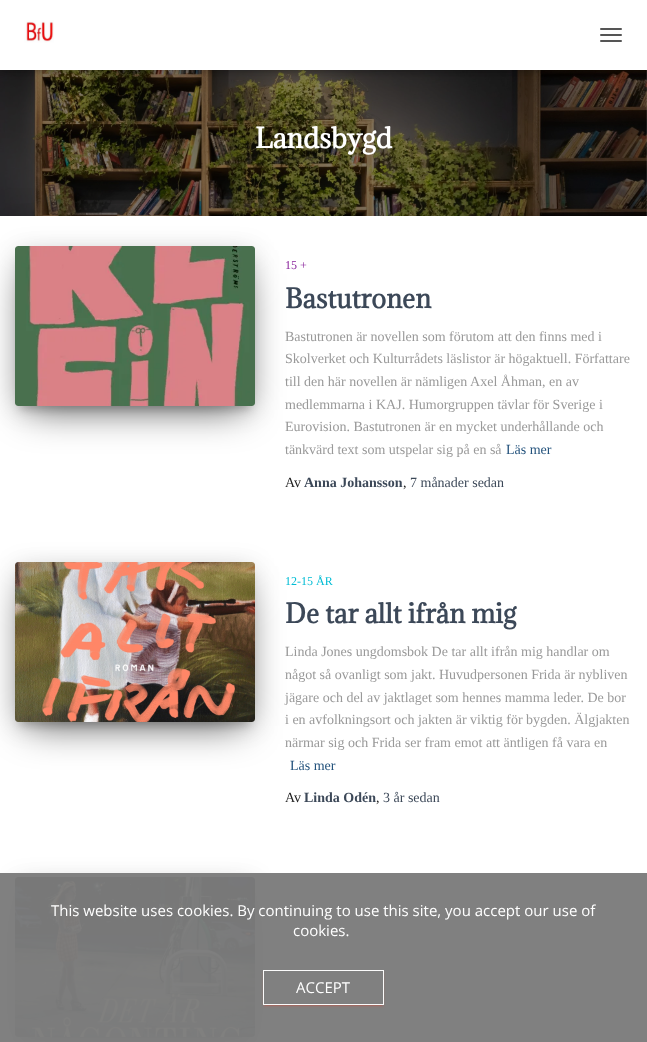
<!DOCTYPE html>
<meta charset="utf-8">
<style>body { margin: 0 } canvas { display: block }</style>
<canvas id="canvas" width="647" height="1042"></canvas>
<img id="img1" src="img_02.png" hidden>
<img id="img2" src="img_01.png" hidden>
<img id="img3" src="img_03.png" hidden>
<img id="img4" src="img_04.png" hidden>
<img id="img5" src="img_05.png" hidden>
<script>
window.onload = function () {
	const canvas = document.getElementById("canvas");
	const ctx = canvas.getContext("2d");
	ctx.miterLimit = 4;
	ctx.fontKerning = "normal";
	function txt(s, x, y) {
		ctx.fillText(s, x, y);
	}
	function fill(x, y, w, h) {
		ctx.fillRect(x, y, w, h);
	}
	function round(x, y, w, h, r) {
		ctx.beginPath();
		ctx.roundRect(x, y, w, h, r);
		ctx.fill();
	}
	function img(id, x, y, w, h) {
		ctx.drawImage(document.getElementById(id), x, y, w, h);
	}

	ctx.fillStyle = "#FFFFFF";
	fill(0, 0, 647, 1042);
	img("img1", 0, 70, 647, 146);
	ctx.fillStyle = "rgba(0, 0, 0, 0.1)";
	ctx.filter = "blur(2.5px)";
	ctx.beginPath();
	ctx.rect(2, 6, 643, 66);
	ctx.fill();
	ctx.filter = "none";
	ctx.fillStyle = "rgba(0, 0, 0, 0.12)";
	ctx.filter = "blur(5px)";
	ctx.beginPath();
	ctx.rect(0, 1, 647, 70);
	ctx.fill();
	ctx.filter = "none";
	ctx.fillStyle = "rgba(0, 0, 0, 0.42)";
	ctx.filter = "blur(5px)";
	ctx.beginPath();
	ctx.rect(6, 7, 635, 58);
	ctx.fill();
	ctx.filter = "none";
	ctx.fillStyle = "#FFFFFF";
	fill(0, 0, 647, 70);
	img("img2", 24, 20, 30, 23);
	ctx.fillStyle = "#555555";
	round(600, 28, 22, 2, 1);
	round(600, 34, 22, 2, 1);
	round(600, 40, 22, 2, 1);
	ctx.fillStyle = "rgba(0, 0, 0, 0.12)";
	ctx.filter = "blur(15px)";
	ctx.beginPath();
	ctx.rect(-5, 217, 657, 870);
	ctx.fill();
	ctx.filter = "none";
	ctx.fillStyle = "#FFFFFF";
	fill(0, 216, 647, 826);
	ctx.fillStyle = "rgba(0, 0, 0, 0.2)";
	ctx.filter = "blur(5px)";
	ctx.beginPath();
	ctx.rect(20, 259, 230, 150);
	ctx.fill();
	ctx.filter = "none";
	ctx.fillStyle = "rgba(0, 0, 0, 0.12)";
	ctx.filter = "blur(12.5px)";
	ctx.beginPath();
	ctx.roundRect(15, 250, 240, 160, 3);
	ctx.fill();
	ctx.filter = "none";
	ctx.fillStyle = "rgba(0, 0, 0, 0.56)";
	ctx.filter = "blur(19px)";
	ctx.beginPath();
	ctx.rect(27, 274, 216, 136);
	ctx.fill();
	ctx.filter = "none";
	img("img3", 15, 246, 240, 160);
	ctx.fillStyle = "rgba(0, 0, 0, 0.2)";
	ctx.filter = "blur(5px)";
	ctx.beginPath();
	ctx.rect(20, 575, 230, 150);
	ctx.fill();
	ctx.filter = "none";
	ctx.fillStyle = "rgba(0, 0, 0, 0.12)";
	ctx.filter = "blur(12.5px)";
	ctx.beginPath();
	ctx.roundRect(15, 566, 240, 160, 3);
	ctx.fill();
	ctx.filter = "none";
	ctx.fillStyle = "rgba(0, 0, 0, 0.56)";
	ctx.filter = "blur(19px)";
	ctx.beginPath();
	ctx.rect(27, 590, 216, 136);
	ctx.fill();
	ctx.filter = "none";
	img("img4", 15, 562, 240, 160);
	ctx.fillStyle = "rgba(0, 0, 0, 0.2)";
	ctx.filter = "blur(5px)";
	ctx.beginPath();
	ctx.rect(20, 890, 230, 150);
	ctx.fill();
	ctx.filter = "none";
	ctx.fillStyle = "rgba(0, 0, 0, 0.12)";
	ctx.filter = "blur(12.5px)";
	ctx.beginPath();
	ctx.roundRect(15, 881, 240, 160, 3);
	ctx.fill();
	ctx.filter = "none";
	ctx.fillStyle = "rgba(0, 0, 0, 0.56)";
	ctx.filter = "blur(19px)";
	ctx.beginPath();
	ctx.rect(27, 905, 216, 136);
	ctx.fill();
	ctx.filter = "none";
	img("img5", 15, 877, 240, 160);
	ctx.fillStyle = "rgba(124, 124, 124, 0.97)";
	fill(0, 873, 647, 169);
	ctx.save();
	ctx.beginPath();
	ctx.rect(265, 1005, 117, 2);
	ctx.clip();
	ctx.fillStyle = "rgba(244, 60, 31, 0.19)";
	ctx.filter = "blur(0.5px)";
	ctx.beginPath();
	ctx.rect(265, 975, 117, 31);
	ctx.fill();
	ctx.filter = "none";
	ctx.restore();
	ctx.save();
	ctx.beginPath();
	ctx.moveTo(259, 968);
	ctx.lineTo(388, 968);
	ctx.lineTo(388, 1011);
	ctx.lineTo(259, 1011);
	ctx.closePath();
	ctx.moveTo(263, 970);
	ctx.lineTo(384, 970);
	ctx.lineTo(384, 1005);
	ctx.lineTo(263, 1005);
	ctx.closePath();
	ctx.clip("evenodd");
	ctx.fillStyle = "rgba(244, 60, 31, 0.14)";
	ctx.filter = "blur(1px)";
	ctx.beginPath();
	ctx.rect(263, 972, 121, 35);
	ctx.fill();
	ctx.filter = "none";
	ctx.restore();
	ctx.strokeStyle = "rgba(255, 255, 255, 0.97)";
	ctx.strokeRect(263.5, 970.5, 120, 34);
	ctx.font = "bold 26px Adamina";
	ctx.fillStyle = "#FFFFFF";
	txt("Landsbygd", 255, 148);
	ctx.font = "12px Liberation Serif";
	ctx.fillStyle = "#89229B";
	txt("15 +", 285, 269);
	ctx.font = "bold 25px Adamina";
	ctx.fillStyle = "#3C4858";
	txt("Bastutronen", 285, 308);
	ctx.font = "14px Liberation Serif";
	ctx.fillStyle = "#999999";
	txt("Bastutronen är novellen som förutom att den finns med i", 285, 341);
	txt("Skolverket och Kulturrådets läslistor är högaktuell. Författare", 285, 363);
	txt("till den här novellen är nämligen Axel Åhman, en av", 285, 386);
	txt("medlemmarna i KAJ. Humorgruppen tävlar för Sverige i", 285, 409);
	txt("Eurovision. Bastutronen är en mycket underhållande och", 285, 431);
	txt("tänkvärd text som utspelar sig på en så", 285, 454);
	ctx.fillStyle = "#23527C";
	txt("Läs mer", 506, 454);
	ctx.fillStyle = "#212121";
	txt("Av", 285, 487);
	ctx.font = "bold 14px Liberation Serif";
	ctx.fillStyle = "#3C4858";
	txt("Anna Johansson", 304, 487);
	ctx.font = "14px Liberation Serif";
	ctx.fillStyle = "#212121";
	txt(",", 403, 487);
	ctx.fillStyle = "#3C4858";
	txt("7 månader sedan", 410, 487);
	ctx.font = "12px Liberation Serif";
	ctx.fillStyle = "#00BCD4";
	txt("12-15 ÅR", 285, 585);
	ctx.font = "bold 25px Adamina";
	ctx.fillStyle = "#3C4858";
	txt("De tar allt ifrån mig", 285, 623);
	ctx.font = "14px Liberation Serif";
	ctx.fillStyle = "#999999";
	txt("Linda Jones ungdomsbok De tar allt ifrån mig handlar om", 285, 656);
	txt("något så ovanligt som jakt. Huvudpersonen Frida är nybliven", 285, 679);
	txt("jägare och del av jaktlaget som hennes mamma leder. De bor", 285, 702);
	txt("i en avfolkningsort och jakten är viktig för bygden. Älgjakten", 285, 724);
	txt("närmar sig och Frida ser fram emot att äntligen få vara en", 285, 747);
	ctx.fillStyle = "#23527C";
	txt("Läs mer", 290, 770);
	ctx.fillStyle = "#212121";
	txt("Av", 285, 802);
	ctx.font = "bold 14px Liberation Serif";
	ctx.fillStyle = "#3C4858";
	txt("Linda Odén", 304, 802);
	ctx.font = "14px Liberation Serif";
	ctx.fillStyle = "#212121";
	txt(",", 376, 802);
	ctx.fillStyle = "#3C4858";
	txt("3 år sedan", 383, 802);
	ctx.font = "15px Open Sans";
	ctx.fillStyle = "#FFFFFF";
	txt("This website uses cookies. By continuing to use this site, you accept our use of", 51, 916);
	txt("cookies.", 293, 936);
	txt("ACCEPT", 296, 993);
};
</script>
